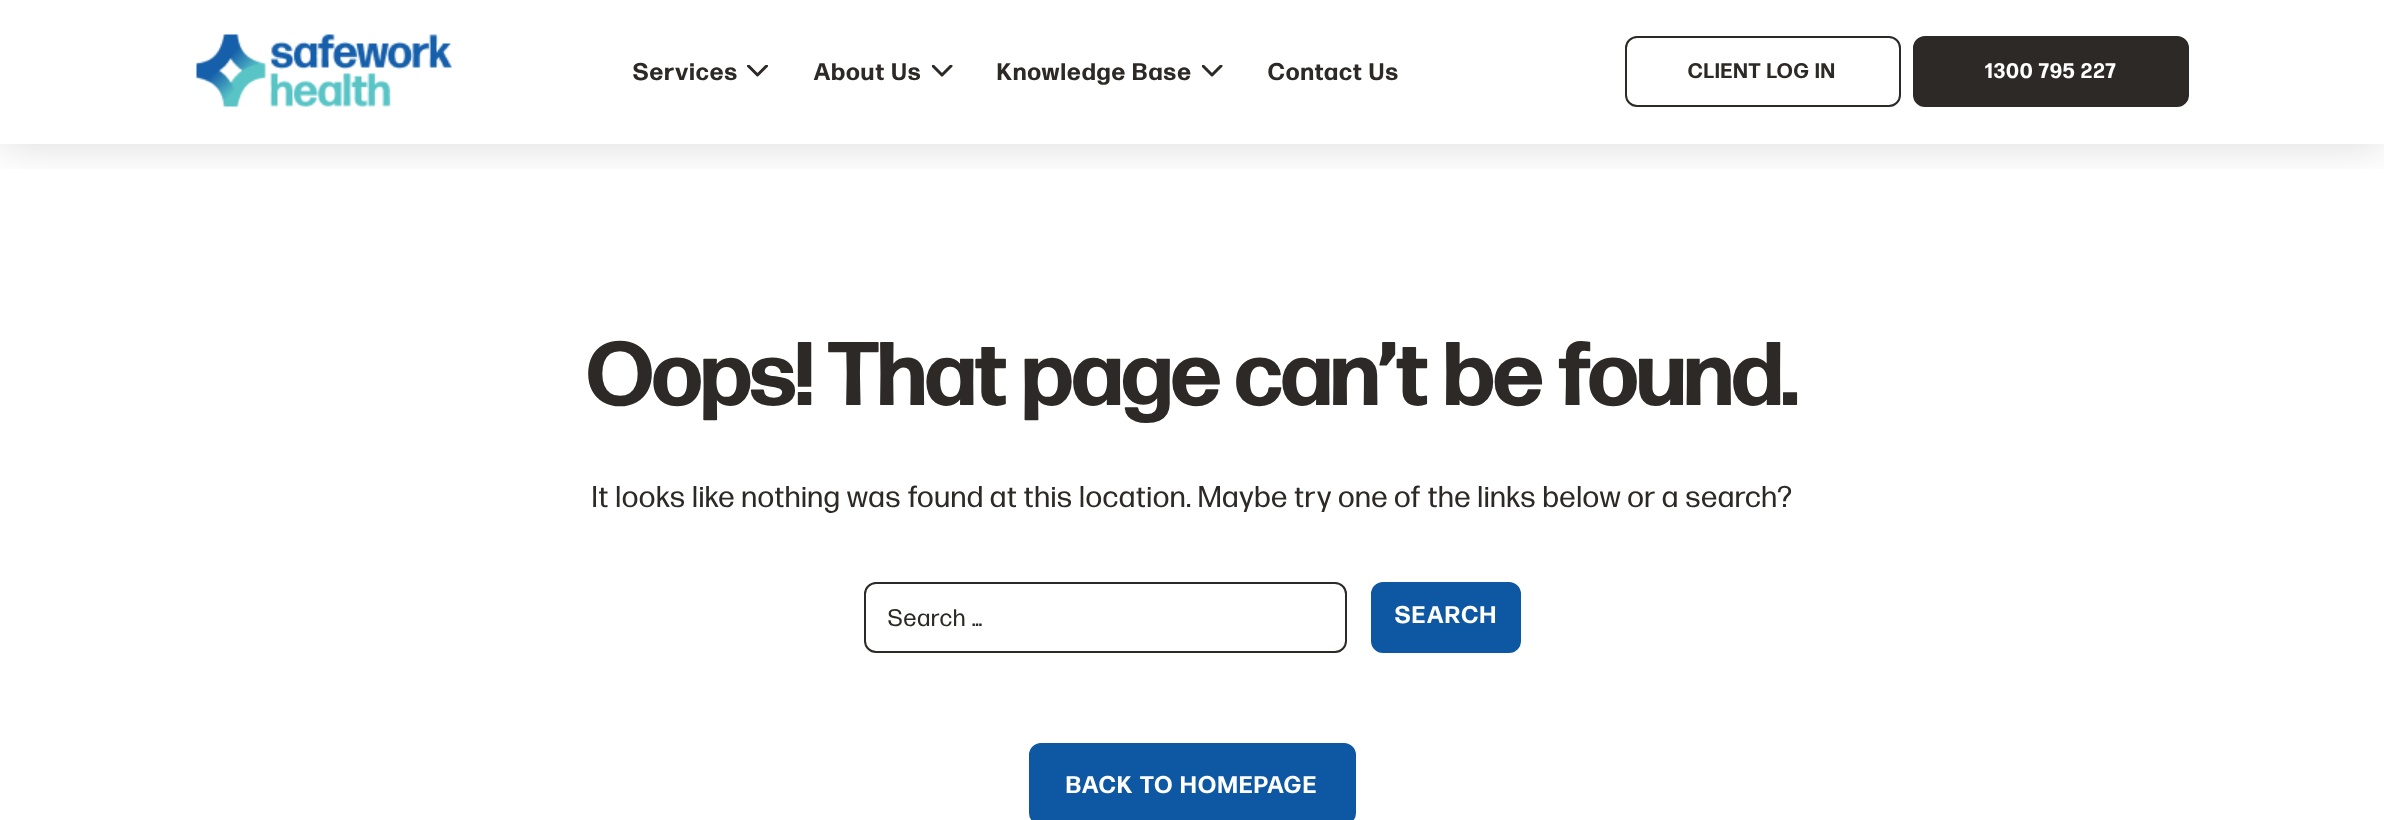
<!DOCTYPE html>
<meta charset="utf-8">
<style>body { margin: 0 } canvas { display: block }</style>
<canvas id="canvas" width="2384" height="820"></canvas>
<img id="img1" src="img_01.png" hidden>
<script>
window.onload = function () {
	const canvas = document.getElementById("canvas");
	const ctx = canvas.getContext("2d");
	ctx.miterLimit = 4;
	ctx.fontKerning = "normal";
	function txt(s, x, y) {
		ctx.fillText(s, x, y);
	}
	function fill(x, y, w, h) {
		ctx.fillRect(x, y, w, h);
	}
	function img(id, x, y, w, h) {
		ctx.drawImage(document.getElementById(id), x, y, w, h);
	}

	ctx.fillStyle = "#FFFFFF";
	fill(0, 0, 2384, 820);
	ctx.save();
	ctx.beginPath();
	ctx.rect(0, 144, 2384, 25);
	ctx.clip();
	ctx.fillStyle = "rgba(0, 0, 0, 0.15)";
	ctx.filter = "blur(22.5px)";
	ctx.beginPath();
	ctx.rect(0, 0, 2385, 144);
	ctx.fill();
	ctx.filter = "none";
	ctx.restore();
	img("img1", 196, 34, 256, 73);
	ctx.save();
	ctx.beginPath();
	ctx.rect(747, 65, 21, 12);
	ctx.clip();
	ctx.beginPath();
	ctx.moveTo(748.5, 66);
	ctx.lineTo(757.5, 75);
	ctx.lineTo(766.5, 66);
	ctx.strokeStyle = "#2D2926";
	ctx.lineWidth = 3;
	ctx.lineCap = "round";
	ctx.lineJoin = "round";
	ctx.stroke();
	ctx.restore();
	ctx.save();
	ctx.beginPath();
	ctx.rect(932, 65, 21, 12);
	ctx.clip();
	ctx.beginPath();
	ctx.moveTo(933, 66);
	ctx.lineTo(942, 75);
	ctx.lineTo(951, 66);
	ctx.strokeStyle = "#2D2926";
	ctx.lineWidth = 3;
	ctx.lineCap = "round";
	ctx.lineJoin = "round";
	ctx.stroke();
	ctx.restore();
	ctx.save();
	ctx.beginPath();
	ctx.rect(1202, 65, 21, 12);
	ctx.clip();
	ctx.beginPath();
	ctx.moveTo(1203, 66);
	ctx.lineTo(1212, 75);
	ctx.lineTo(1221, 66);
	ctx.strokeStyle = "#2D2926";
	ctx.lineWidth = 3;
	ctx.lineCap = "round";
	ctx.lineJoin = "round";
	ctx.stroke();
	ctx.restore();
	ctx.beginPath();
	ctx.roundRect(1626, 37, 274, 69, 11);
	ctx.strokeStyle = "#2D2926";
	ctx.lineWidth = 2;
	ctx.stroke();
	ctx.fillStyle = "#2D2926";
	ctx.beginPath();
	ctx.roundRect(1914, 37, 274, 69, 11);
	ctx.fill();
	ctx.stroke();
	ctx.beginPath();
	ctx.roundRect(865, 583, 481, 69, 11);
	ctx.stroke();
	ctx.fillStyle = "#0E57A2";
	ctx.beginPath();
	ctx.roundRect(1372, 583, 148, 69, 11);
	ctx.fill();
	ctx.strokeStyle = "#0E57A2";
	ctx.stroke();
	ctx.beginPath();
	ctx.roundRect(1030, 744, 325, 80, 11);
	ctx.fill();
	ctx.stroke();
	ctx.letterSpacing = "1.5px";
	ctx.font = "bold 24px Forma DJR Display";
	ctx.fillStyle = "#2D2926";
	txt("Services", 633, 80);
	txt("About Us", 814, 80);
	txt("Knowledge Base", 997, 80);
	txt("Contact Us", 1268, 80);
	ctx.letterSpacing = "1.25px";
	ctx.font = "bold 21px Forma DJR Display";
	txt("CLIENT LOG IN", 1688, 78);
	ctx.fillStyle = "#FFFFFF";
	txt("1300 795 227", 1985, 78);
	ctx.letterSpacing = "-0.75px";
	ctx.font = "bold 90px Forma DJR Display";
	ctx.fillStyle = "#2D2926";
	txt("Oops! That page can’t be found.", 587, 405);
	ctx.letterSpacing = "1.5px";
	ctx.font = "30px Forma DJR Display";
	txt("It looks like nothing was found at this location. Maybe try one of the links below or a search?", 592, 507);
	ctx.font = "24px Forma DJR Display";
	txt("Search …", 888, 626);
	ctx.letterSpacing = "1.9px";
	ctx.font = "bold 24px Forma DJR Display";
	ctx.fillStyle = "#FFFFFF";
	txt("SEARCH", 1395, 623);
	txt("BACK TO HOMEPAGE", 1066, 793);
};
</script>
